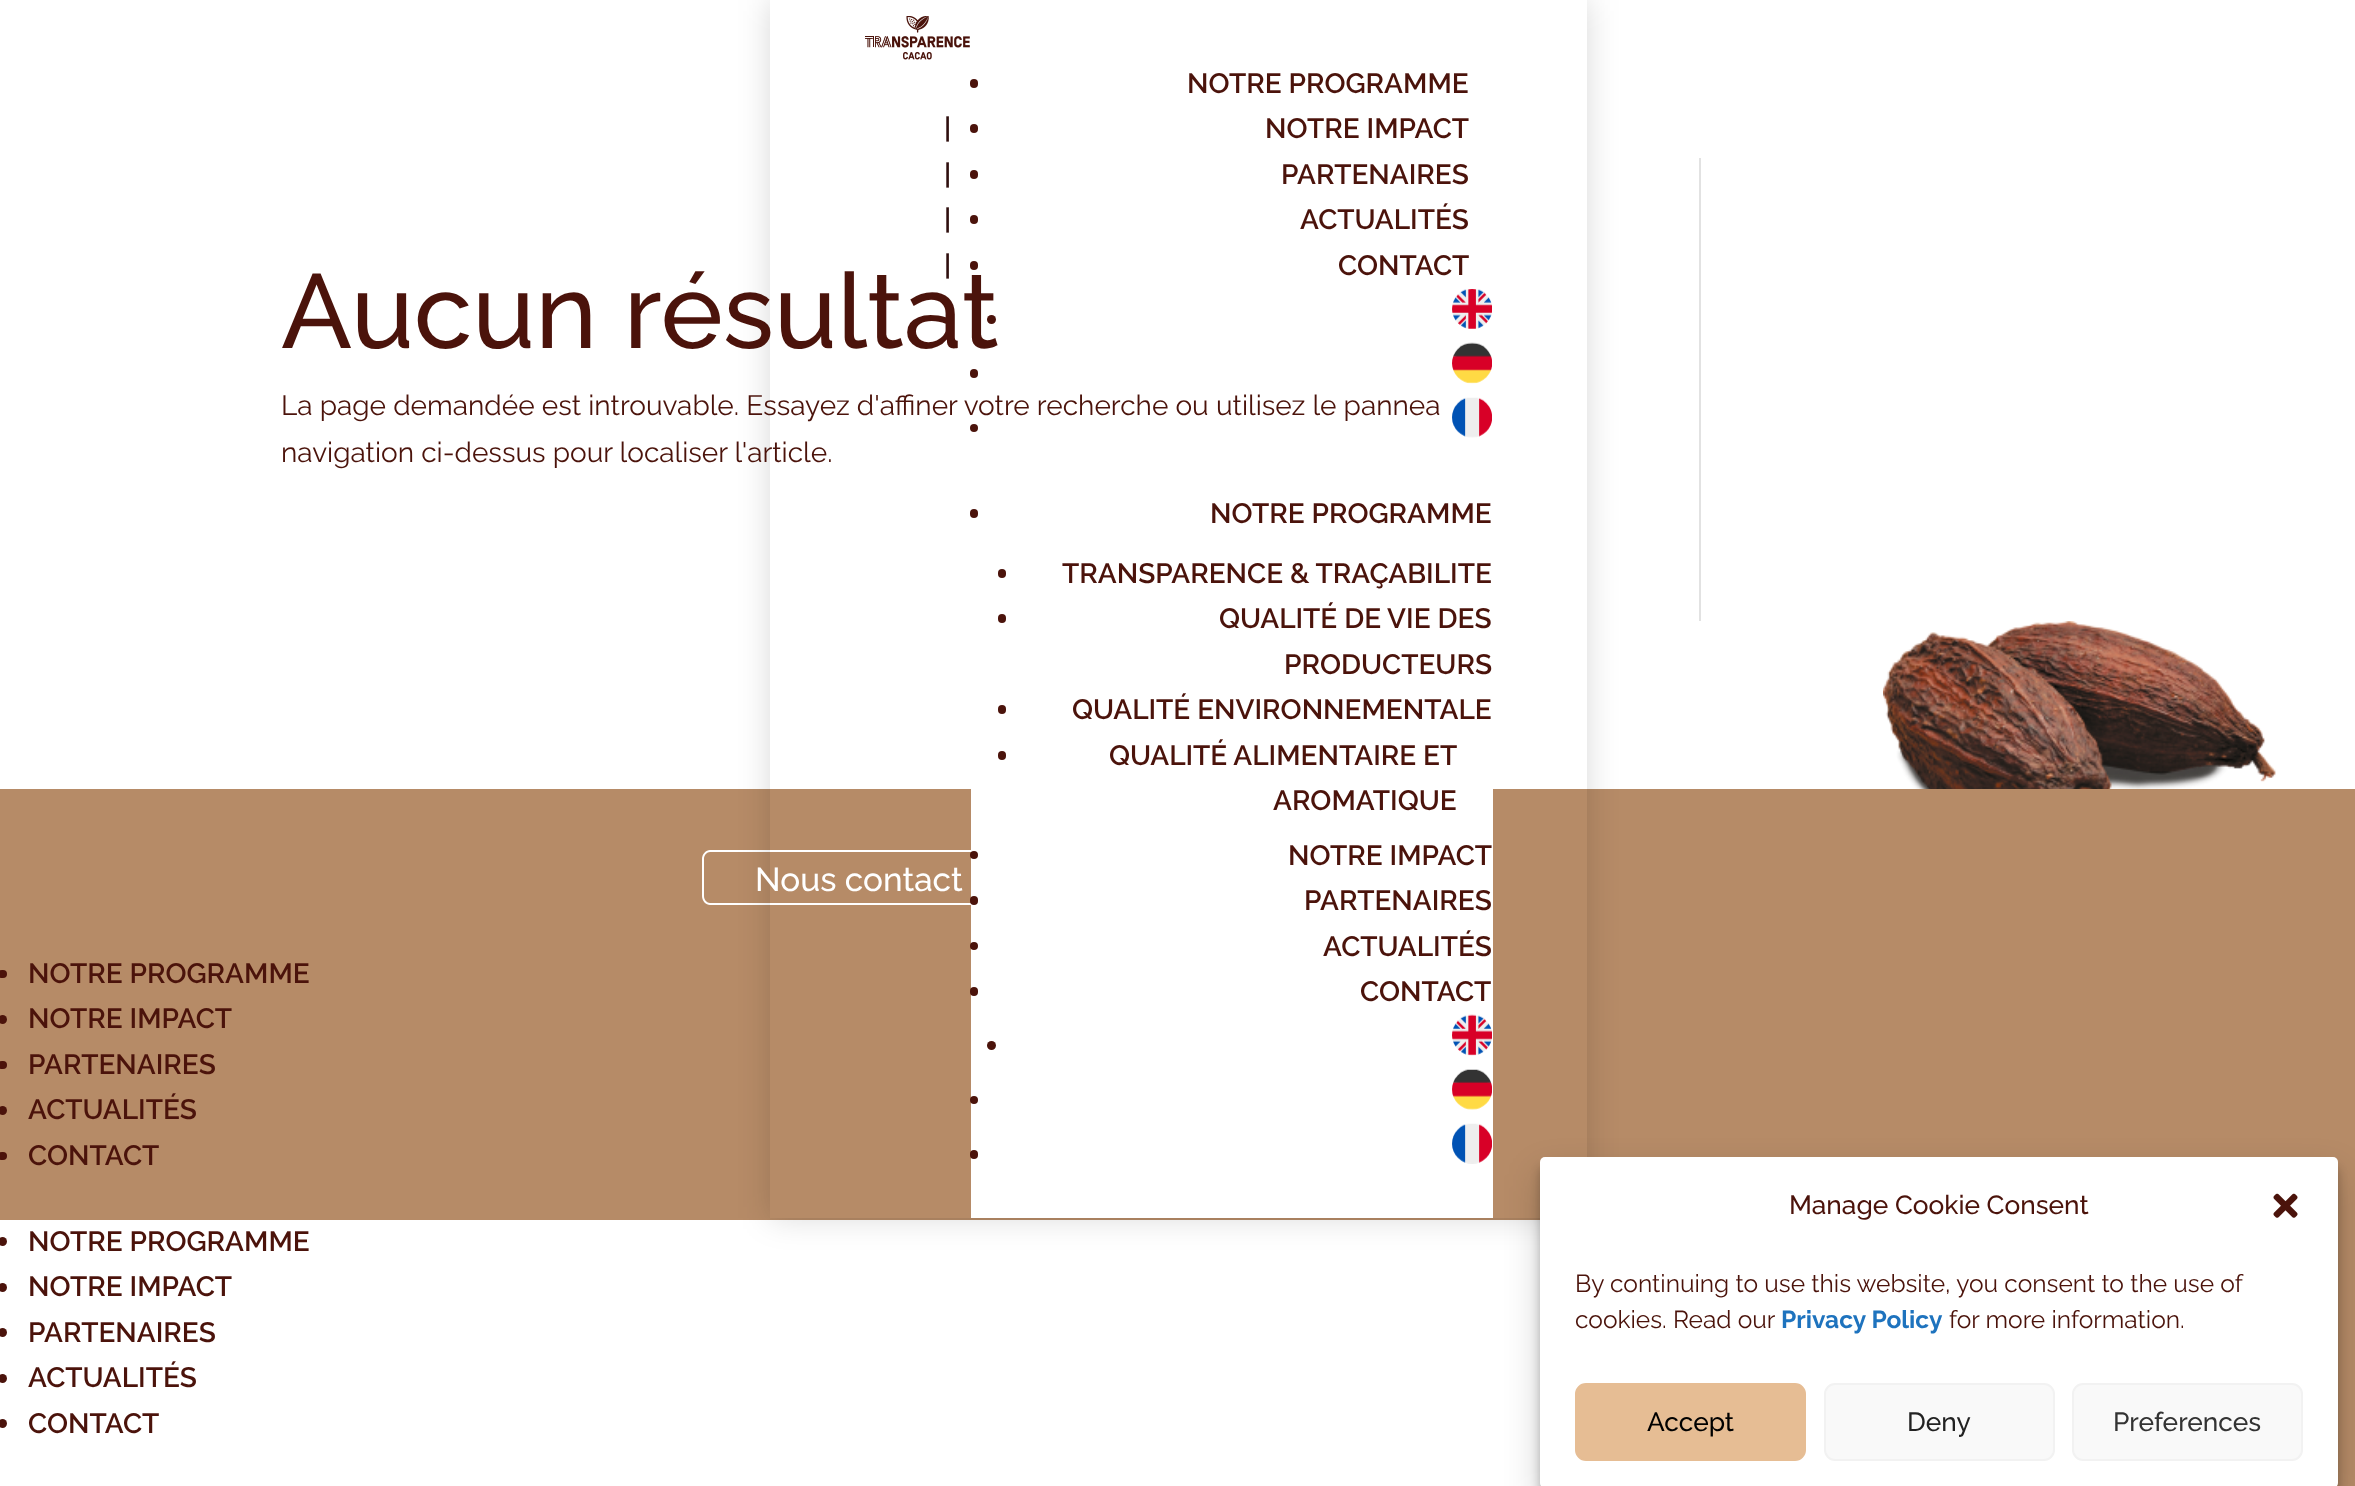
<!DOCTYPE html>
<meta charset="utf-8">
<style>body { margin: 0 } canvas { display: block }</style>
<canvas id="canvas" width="2355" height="1486"></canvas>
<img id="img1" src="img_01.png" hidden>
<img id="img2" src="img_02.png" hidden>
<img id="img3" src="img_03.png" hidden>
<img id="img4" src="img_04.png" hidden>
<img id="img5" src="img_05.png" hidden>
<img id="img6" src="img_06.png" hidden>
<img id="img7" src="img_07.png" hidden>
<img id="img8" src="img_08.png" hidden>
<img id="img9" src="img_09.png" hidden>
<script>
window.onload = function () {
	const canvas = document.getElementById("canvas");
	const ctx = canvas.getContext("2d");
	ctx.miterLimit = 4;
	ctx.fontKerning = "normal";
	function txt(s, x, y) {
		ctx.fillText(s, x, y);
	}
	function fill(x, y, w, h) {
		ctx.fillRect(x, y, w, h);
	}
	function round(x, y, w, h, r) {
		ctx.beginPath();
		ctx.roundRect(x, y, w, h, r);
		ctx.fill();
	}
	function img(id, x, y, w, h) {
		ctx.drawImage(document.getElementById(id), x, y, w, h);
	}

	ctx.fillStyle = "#FFFFFF";
	fill(0, 0, 2355, 1486);
	ctx.fillStyle = "#B68B67";
	fill(0, 789, 2355, 697);
	ctx.fillStyle = "#FFFFFF";
	ctx.beginPath();
	ctx.moveTo(710, 850);
	ctx.lineTo(994, 850);
	ctx.lineTo(994, 905);
	ctx.lineTo(710, 905);
	ctx.bezierCurveTo(706, 905, 702, 901, 702, 896);
	ctx.lineTo(702, 859);
	ctx.bezierCurveTo(702, 854, 706, 850, 710, 850);
	ctx.closePath();
	ctx.moveTo(710, 852);
	ctx.lineTo(994, 852);
	ctx.lineTo(994, 903);
	ctx.lineTo(710, 903);
	ctx.bezierCurveTo(707, 903, 704, 900, 704, 896);
	ctx.lineTo(704, 859);
	ctx.bezierCurveTo(704, 855, 707, 852, 710, 852);
	ctx.closePath();
	ctx.fill("evenodd");
	fill(0, 1220, 1541, 266);
	ctx.save();
	ctx.beginPath();
	ctx.moveTo(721, 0);
	ctx.lineTo(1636, 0);
	ctx.lineTo(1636, 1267);
	ctx.lineTo(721, 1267);
	ctx.closePath();
	ctx.moveTo(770, 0);
	ctx.lineTo(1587, 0);
	ctx.lineTo(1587, 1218);
	ctx.lineTo(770, 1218);
	ctx.closePath();
	ctx.clip("evenodd");
	ctx.fillStyle = "rgba(10, 10, 10, 0.15)";
	ctx.filter = "blur(16px)";
	ctx.beginPath();
	ctx.rect(770, 0, 817, 1218);
	ctx.fill();
	ctx.filter = "none";
	ctx.restore();
	img("img1", 865, 16, 105, 44);
	ctx.fillStyle = "#4B130B";
	round(970, 79, 8, 9, 4);
	round(970, 124, 8, 9, 4);
	round(970, 170, 8, 9, 4);
	round(970, 215, 8, 9, 4);
	round(970, 261, 8, 9, 4);
	ctx.beginPath();
	ctx.arc(991.5, 319.5, 4.5, 0, Math.PI * 2);
	ctx.fill();
	img("img2", 1452, 289, 40, 40);
	round(970, 369, 8, 9, 4);
	img("img3", 1452, 342, 40, 42);
	ctx.beginPath();
	ctx.arc(974, 428, 4, 0, Math.PI * 2);
	ctx.fill();
	img("img4", 1452, 397, 40, 41);
	ctx.fillStyle = "#FFFFFF";
	fill(971, 789, 522, 429);
	ctx.fillStyle = "#4B130B";
	round(970, 509, 8, 9, 4);
	round(998, 569, 8, 9, 4);
	round(998, 614, 8, 9, 4);
	round(998, 705, 8, 9, 4);
	round(998, 751, 8, 9, 4);
	ctx.beginPath();
	ctx.arc(974, 855, 4, 0, Math.PI * 2);
	ctx.fill();
	round(970, 896, 8, 9, 4);
	ctx.beginPath();
	ctx.arc(974, 946, 4, 0, Math.PI * 2);
	ctx.fill();
	round(970, 987, 8, 9, 4);
	ctx.beginPath();
	ctx.arc(991.5, 1045.5, 4.5, 0, Math.PI * 2);
	ctx.fill();
	img("img5", 1452, 1014, 40, 42);
	ctx.beginPath();
	ctx.arc(974, 1100, 4, 0, Math.PI * 2);
	ctx.fill();
	img("img6", 1452, 1069, 40, 41);
	round(970, 1150, 8, 9, 4);
	img("img7", 1452, 1123, 40, 41);
	ctx.fillStyle = "#E2E2E2";
	fill(1699, 158, 2, 463);
	img("img8", 1883, 621, 393, 168);
	ctx.fillStyle = "#4B130B";
	round(-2, 970, 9, 8, 4);
	ctx.beginPath();
	ctx.arc(2.5, 1019.5, 4.5, 0, Math.PI * 2);
	ctx.fill();
	round(-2, 1061, 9, 8, 4);
	ctx.beginPath();
	ctx.arc(2.5, 1110.5, 4.5, 0, Math.PI * 2);
	ctx.fill();
	round(-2, 1152, 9, 8, 4);
	ctx.beginPath();
	ctx.arc(2.5, 1241.5, 4.5, 0, Math.PI * 2);
	ctx.fill();
	ctx.beginPath();
	ctx.arc(2.5, 1287.5, 4.5, 0, Math.PI * 2);
	ctx.fill();
	ctx.beginPath();
	ctx.arc(2.5, 1332.5, 4.5, 0, Math.PI * 2);
	ctx.fill();
	ctx.beginPath();
	ctx.arc(2.5, 1378.5, 4.5, 0, Math.PI * 2);
	ctx.fill();
	ctx.beginPath();
	ctx.arc(2.5, 1423.5, 4.5, 0, Math.PI * 2);
	ctx.fill();
	ctx.fillStyle = "rgba(0, 0, 0, 0.23)";
	ctx.filter = "blur(5px)";
	ctx.beginPath();
	ctx.roundRect(1540, 1167, 798, 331, 5);
	ctx.fill();
	ctx.filter = "none";
	ctx.fillStyle = "rgba(0, 0, 0, 0.19)";
	ctx.filter = "blur(17.5px)";
	ctx.beginPath();
	ctx.roundRect(1540, 1174, 798, 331, 5);
	ctx.fill();
	ctx.filter = "none";
	ctx.fillStyle = "#FFFFFF";
	round(1540, 1157, 798, 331, 5);
	img("img9", 2273, 1193, 25, 25);
	ctx.fillStyle = "#E6BD94";
	ctx.beginPath();
	ctx.roundRect(1576, 1384, 229, 76, 10);
	ctx.fill();
	ctx.strokeStyle = "#E6BD94";
	ctx.lineWidth = 2;
	ctx.stroke();
	ctx.fillStyle = "#F9F9F9";
	ctx.beginPath();
	ctx.roundRect(1825, 1384, 229, 76, 10);
	ctx.fill();
	ctx.strokeStyle = "#F2F2F2";
	ctx.stroke();
	ctx.beginPath();
	ctx.roundRect(2073, 1384, 229, 76, 10);
	ctx.fill();
	ctx.stroke();
	ctx.font = "600 28px Raleway";
	ctx.fillStyle = "#4B130B";
	txt("NOTRE PROGRAMME", 1187, 93);
	ctx.fillStyle = "#2F0F0E";
	txt("|", 944, 138);
	ctx.fillStyle = "#4B130B";
	txt("NOTRE IMPACT", 1265, 138);
	ctx.fillStyle = "#2F0F0E";
	txt("|", 944, 184);
	ctx.fillStyle = "#4B130B";
	txt("PARTENAIRES", 1281, 184);
	ctx.fillStyle = "#2F0F0E";
	txt("|", 944, 229);
	ctx.fillStyle = "#4B130B";
	txt("ACTUALITÉS", 1300, 229);
	ctx.fillStyle = "#2F0F0E";
	txt("|", 944, 275);
	ctx.fillStyle = "#4B130B";
	txt("CONTACT", 1338, 275);
	txt("NOTRE PROGRAMME", 1210, 523);
	txt("TRANSPARENCE & TRAÇABILITE", 1062, 583);
	txt("QUALITÉ DE VIE DES", 1219, 628);
	txt("PRODUCTEURS", 1284, 674);
	txt("QUALITÉ ENVIRONNEMENTALE", 1072, 719);
	txt("QUALITÉ ALIMENTAIRE ET", 1109, 765);
	txt("AROMATIQUE", 1273, 810);
	txt("NOTRE IMPACT", 1288, 865);
	txt("PARTENAIRES", 1304, 910);
	txt("ACTUALITÉS", 1323, 956);
	txt("CONTACT", 1360, 1001);
	ctx.font = "500 105px Raleway";
	txt("Aucun résultat", 281, 348);
	ctx.font = "28px Raleway";
	txt("La page demandée est introuvable. Essayez d'affiner votre recherche ou utilisez le pannea", 281, 415);
	txt("navigation ci-dessus pour localiser l'article.", 281, 462);
	ctx.font = "500 33.25px Raleway";
	ctx.fillStyle = "#FFFFFF";
	txt("Nous contact", 755, 891);
	ctx.font = "600 28px Raleway";
	ctx.fillStyle = "#4B130B";
	txt("NOTRE PROGRAMME", 28, 983);
	txt("NOTRE IMPACT", 28, 1028);
	txt("PARTENAIRES", 28, 1074);
	txt("ACTUALITÉS", 28, 1119);
	txt("CONTACT", 28, 1165);
	txt("NOTRE PROGRAMME", 28, 1251);
	txt("NOTRE IMPACT", 28, 1296);
	txt("PARTENAIRES", 28, 1342);
	txt("ACTUALITÉS", 28, 1387);
	txt("CONTACT", 28, 1433);
	ctx.font = "500 26.25px Raleway";
	txt("Manage Cookie Consent", 1789, 1214);
	ctx.font = "24.5px Raleway";
	txt("By continuing to use this website, you consent to the use of", 1575, 1292);
	txt("cookies. Read our", 1575, 1328);
	ctx.font = "bold 24.5px Raleway";
	ctx.fillStyle = "#1E73BE";
	txt("Privacy Policy", 1781, 1328);
	ctx.font = "24.5px Raleway";
	ctx.fillStyle = "#4B130B";
	txt("for more information.", 1949, 1328);
	ctx.font = "500 26.25px Raleway";
	ctx.fillStyle = "#000000";
	txt("Accept", 1647, 1431);
	ctx.fillStyle = "#222222";
	txt("Deny", 1907, 1431);
	ctx.fillStyle = "#333333";
	txt("Preferences", 2113, 1431);
};
</script>
